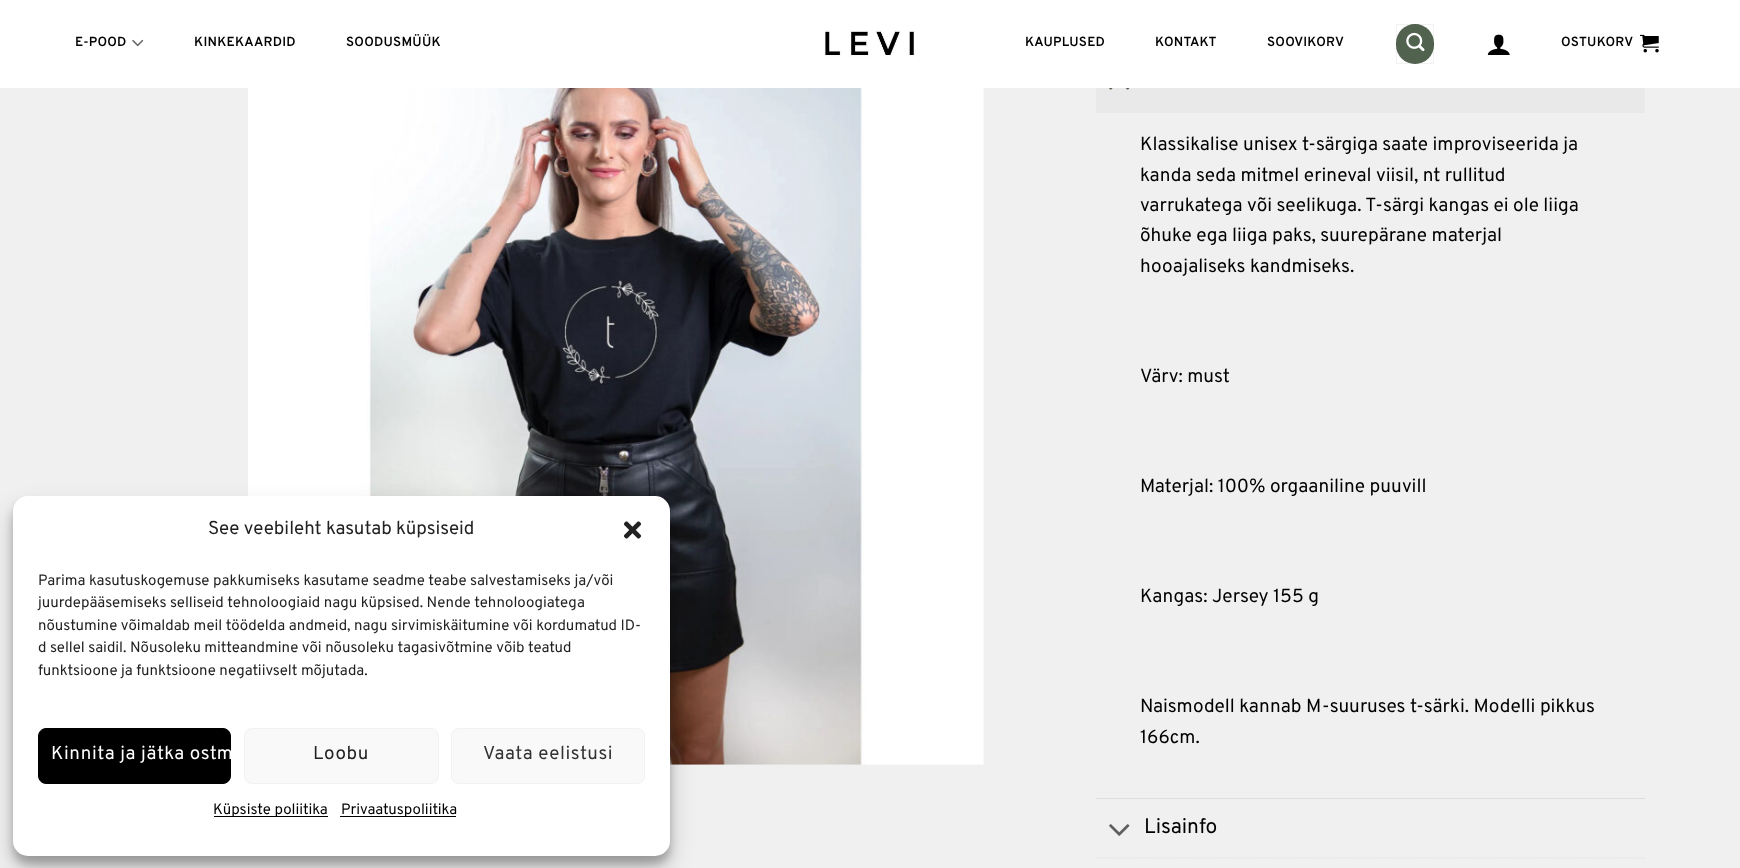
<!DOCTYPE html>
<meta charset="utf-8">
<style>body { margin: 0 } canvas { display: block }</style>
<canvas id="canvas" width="1740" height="868"></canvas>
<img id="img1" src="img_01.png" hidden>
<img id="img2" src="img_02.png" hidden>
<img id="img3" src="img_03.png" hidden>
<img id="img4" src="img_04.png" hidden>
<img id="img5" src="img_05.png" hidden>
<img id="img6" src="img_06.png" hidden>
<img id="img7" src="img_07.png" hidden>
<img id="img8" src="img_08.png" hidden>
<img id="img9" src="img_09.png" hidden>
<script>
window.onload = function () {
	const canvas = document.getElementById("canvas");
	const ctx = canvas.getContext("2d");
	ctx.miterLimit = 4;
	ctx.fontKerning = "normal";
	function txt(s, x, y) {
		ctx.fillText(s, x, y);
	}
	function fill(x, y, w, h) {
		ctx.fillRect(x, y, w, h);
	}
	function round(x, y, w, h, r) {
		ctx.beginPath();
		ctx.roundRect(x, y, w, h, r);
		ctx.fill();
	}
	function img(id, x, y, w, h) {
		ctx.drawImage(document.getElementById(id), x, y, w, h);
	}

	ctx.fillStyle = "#F1F0F0";
	fill(0, 0, 1740, 868);
	ctx.fillStyle = "#FFFFFF";
	fill(0, 0, 1740, 88);
	img("img1", 132, 39, 12, 8);
	img("img2", 824, 30, 92, 27);
	ctx.fillStyle = "#51624F";
	round(1396, 24, 38, 40, 19);
	ctx.strokeStyle = "rgba(0, 0, 0, 0.05)";
	ctx.strokeRect(1396.5, 24.5, 37, 39);
	img("img3", 1406, 32, 19, 20);
	img("img4", 1487, 34, 23, 21);
	img("img5", 1640, 34, 19, 19);
	img("img6", 248, 88, 736, 677);
	ctx.fillStyle = "#EAE9E9";
	fill(1096, 88, 549, 25);
	img("img7", 1109, 88, 21, 2);
	ctx.fillStyle = "#DDDDDD";
	fill(1096, 798, 549, 1);
	img("img8", 1109, 824, 21, 12);
	ctx.beginPath();
	ctx.moveTo(1096, 858);
	ctx.lineTo(1645, 858);
	ctx.strokeStyle = "#DDDDDD";
	ctx.lineWidth = 1.2;
	ctx.setLineDash([1.25, 1.25]);
	ctx.stroke();
	ctx.fillStyle = "rgba(0, 0, 0, 0.23)";
	ctx.filter = "blur(4px)";
	ctx.beginPath();
	ctx.roundRect(13, 504, 657, 360, 15);
	ctx.fill();
	ctx.filter = "none";
	ctx.fillStyle = "rgba(0, 0, 0, 0.19)";
	ctx.filter = "blur(12.5px)";
	ctx.beginPath();
	ctx.roundRect(13, 509, 657, 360, 15);
	ctx.fill();
	ctx.filter = "none";
	ctx.fillStyle = "#FFFFFF";
	round(13, 496, 657, 360, 15);
	img("img9", 623, 521, 19, 18);
	ctx.fillStyle = "#000000";
	ctx.beginPath();
	ctx.roundRect(38.5, 728.5, 192, 55, 7.5);
	ctx.fill();
	ctx.strokeStyle = "#000000";
	ctx.lineWidth = 1;
	ctx.setLineDash([]);
	ctx.stroke();
	ctx.fillStyle = "#F9F9F9";
	ctx.beginPath();
	ctx.roundRect(244.5, 728.5, 194, 55, 7.5);
	ctx.fill();
	ctx.strokeStyle = "#F2F2F2";
	ctx.stroke();
	ctx.beginPath();
	ctx.roundRect(451.5, 728.5, 193, 55, 7.5);
	ctx.fill();
	ctx.stroke();
	ctx.fillStyle = "#000000";
	fill(214, 816, 114, 1);
	fill(340, 816, 116, 1);
	ctx.letterSpacing = "0.25px";
	ctx.font = "600 13.25px Overpass";
	txt("E-POOD", 75, 46);
	txt("KINKEKAARDID", 194, 46);
	txt("SOODUSMÜÜK", 346, 46);
	txt("KAUPLUSED", 1025, 46);
	txt("KONTAKT", 1155, 46);
	txt("SOOVIKORV", 1267, 46);
	txt("OSTUKORV", 1561, 46);
	ctx.letterSpacing = "0px";
	ctx.font = "19px Overpass";
	txt("Klassikalise unisex t-särgiga saate improviseerida ja", 1140, 150);
	txt("kanda seda mitmel erineval viisil, nt rullitud", 1140, 181);
	txt("varrukatega või seelikuga. T-särgi kangas ei ole liiga", 1140, 211);
	txt("õhuke ega liiga paks, suurepärane materjal", 1140, 241);
	txt("hooajaliseks kandmiseks.", 1140, 272);
	txt("Värv: must", 1140, 382);
	txt("Materjal: 100% orgaaniline puuvill", 1140, 492);
	txt("Kangas: Jersey 155 g", 1140, 602);
	txt("Naismodell kannab M-suuruses t-särki. Modelli pikkus", 1140, 712);
	txt("166cm.", 1140, 743);
	ctx.font = "21px Overpass";
	txt("Lisainfo", 1144, 833);
	ctx.font = "18.75px Overpass";
	ctx.fillStyle = "#222222";
	txt("See veebileht kasutab küpsiseid", 208, 534);
	ctx.font = "15px Overpass";
	txt("Parima kasutuskogemuse pakkumiseks kasutame seadme teabe salvestamiseks ja/või", 38, 585);
	txt("juurdepääsemiseks selliseid tehnoloogiaid nagu küpsised. Nende tehnoloogiatega", 38, 607);
	txt("nõustumine võimaldab meil töödelda andmeid, nagu sirvimiskäitumine või kordumatud ID-", 38, 630);
	txt("d sellel saidil. Nõusoleku mitteandmine või nõusoleku tagasivõtmine võib teatud", 38, 652);
	txt("funktsioone ja funktsioone negatiivselt mõjutada.", 38, 675);
	ctx.letterSpacing = "0.6px";
	ctx.font = "18.75px Overpass";
	ctx.fillStyle = "#FFFFFF";
	txt("Kinnita ja jätka ostm", 51, 759);
	ctx.fillStyle = "#222222";
	txt("Loobu", 313, 759);
	ctx.fillStyle = "#333333";
	txt("Vaata eelistusi", 483, 759);
	ctx.letterSpacing = "0px";
	ctx.font = "15px Overpass";
	ctx.fillStyle = "#000000";
	txt("Küpsiste poliitika", 213, 814);
	txt("Privaatuspoliitika", 341, 814);
};
</script>
